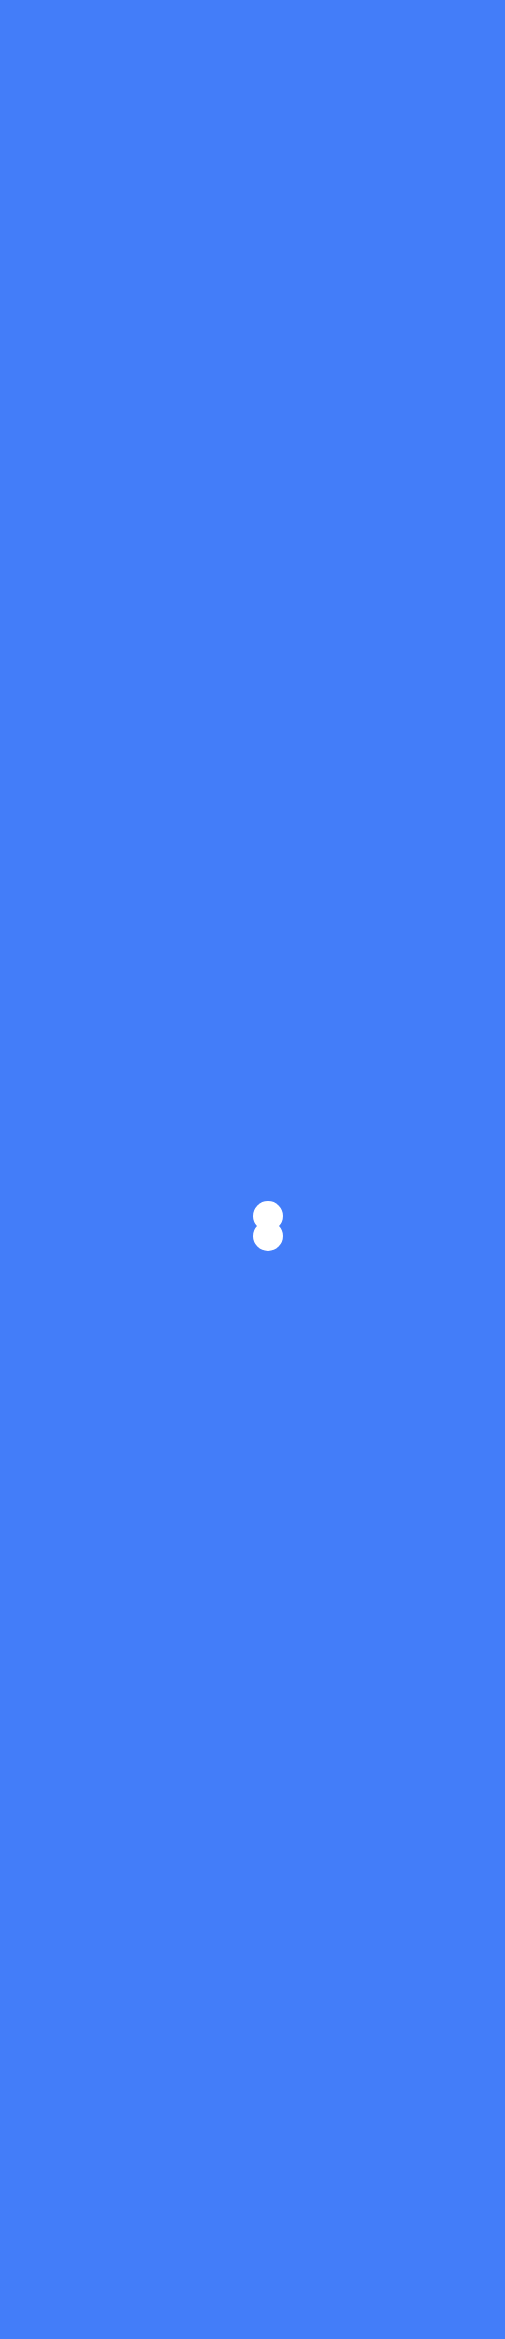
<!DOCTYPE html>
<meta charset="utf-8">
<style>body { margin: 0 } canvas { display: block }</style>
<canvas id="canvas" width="505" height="2339"></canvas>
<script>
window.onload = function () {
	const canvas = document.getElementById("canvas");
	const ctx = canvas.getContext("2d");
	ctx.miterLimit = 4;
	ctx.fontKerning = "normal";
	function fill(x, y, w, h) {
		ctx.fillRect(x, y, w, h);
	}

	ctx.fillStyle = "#437DF9";
	fill(0, 0, 505, 2339);
	ctx.fillStyle = "#FFFFFF";
	ctx.beginPath();
	ctx.arc(268, 1216, 15, 0, Math.PI * 2);
	ctx.fill();
	ctx.beginPath();
	ctx.arc(268, 1236, 15, 0, Math.PI * 2);
	ctx.fill();
};
</script>
